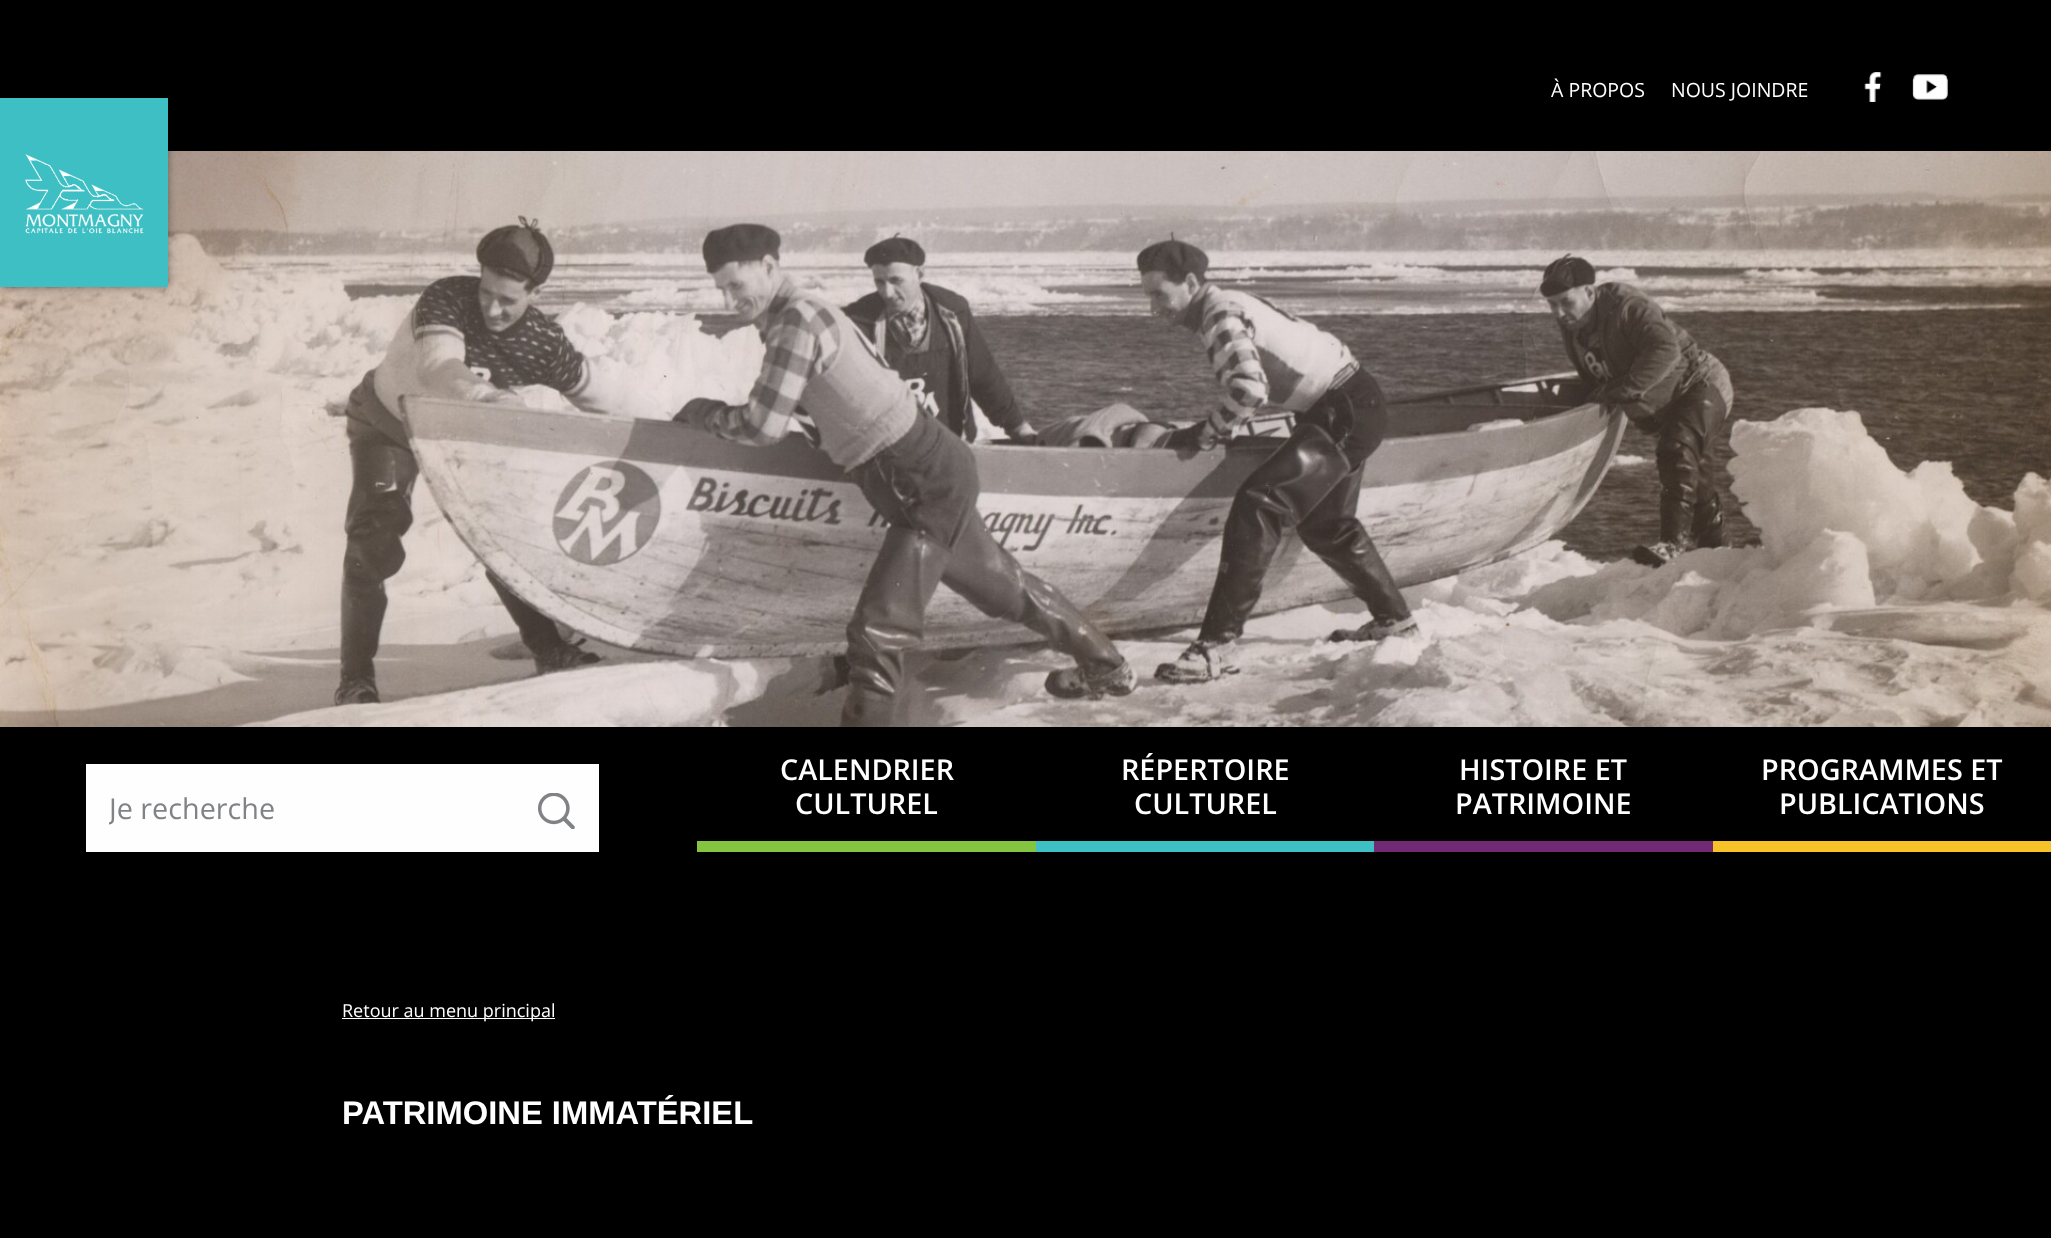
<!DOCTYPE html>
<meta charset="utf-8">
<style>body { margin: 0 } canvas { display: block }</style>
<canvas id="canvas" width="2051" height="1238"></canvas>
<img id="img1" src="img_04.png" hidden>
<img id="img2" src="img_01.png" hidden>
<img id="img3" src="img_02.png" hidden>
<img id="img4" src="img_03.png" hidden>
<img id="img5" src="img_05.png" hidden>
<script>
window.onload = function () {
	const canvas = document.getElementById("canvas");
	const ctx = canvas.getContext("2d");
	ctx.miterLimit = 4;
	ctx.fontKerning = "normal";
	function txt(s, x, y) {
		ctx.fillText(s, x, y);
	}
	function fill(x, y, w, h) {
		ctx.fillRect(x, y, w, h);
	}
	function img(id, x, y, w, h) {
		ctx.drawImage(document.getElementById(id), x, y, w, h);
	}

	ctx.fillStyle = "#000000";
	fill(0, 0, 2051, 1238);
	img("img1", 0, 151, 2051, 576);
	ctx.fillStyle = "rgba(0, 0, 0, 0.4)";
	ctx.filter = "blur(4.5px)";
	ctx.beginPath();
	ctx.rect(0, 98, 168, 189);
	ctx.fill();
	ctx.filter = "none";
	ctx.fillStyle = "#3DBFC3";
	fill(0, 98, 168, 189);
	img("img2", 25, 154, 119, 80);
	img("img3", 1864, 72, 18, 30);
	img("img4", 1912, 74, 36, 26);
	ctx.fillStyle = "#FEFEFE";
	fill(86, 764, 513, 88);
	img("img5", 538, 793, 37, 36);
	ctx.fillStyle = "#84C440";
	fill(697, 841, 339, 11);
	ctx.fillStyle = "#3DBFC3";
	fill(1036, 841, 338, 11);
	ctx.fillStyle = "#702972";
	fill(1374, 841, 339, 11);
	ctx.fillStyle = "#F6C227";
	fill(1713, 841, 338, 11);
	ctx.fillStyle = "#FFFFFF";
	fill(342, 1018, 213, 1);
	ctx.font = "19.5px Open Sans";
	txt("À PROPOS", 1551, 97);
	txt("NOUS JOINDRE", 1671, 97);
	ctx.save();
	ctx.beginPath();
	ctx.rect(109, 788, 467, 39);
	ctx.clip();
	ctx.font = "28.75px Open Sans";
	ctx.fillStyle = "#808285";
	txt("Je recherche", 109, 819);
	ctx.restore();
	ctx.font = "600 28.75px Open Sans";
	txt("CALENDRIER", 780, 780);
	txt("CULTUREL", 795, 814);
	txt("RÉPERTOIRE", 1121, 780);
	txt("CULTUREL", 1134, 814);
	txt("HISTOIRE ET", 1459, 780);
	txt("PATRIMOINE", 1455, 814);
	txt("PROGRAMMES ET", 1761, 780);
	txt("PUBLICATIONS", 1779, 814);
	ctx.font = "18px Open Sans";
	txt("Retour au menu principal", 342, 1017);
	ctx.font = "bold 32.75px Liberation Sans";
	txt("PATRIMOINE IMMATÉRIEL", 342, 1124);
};
</script>
